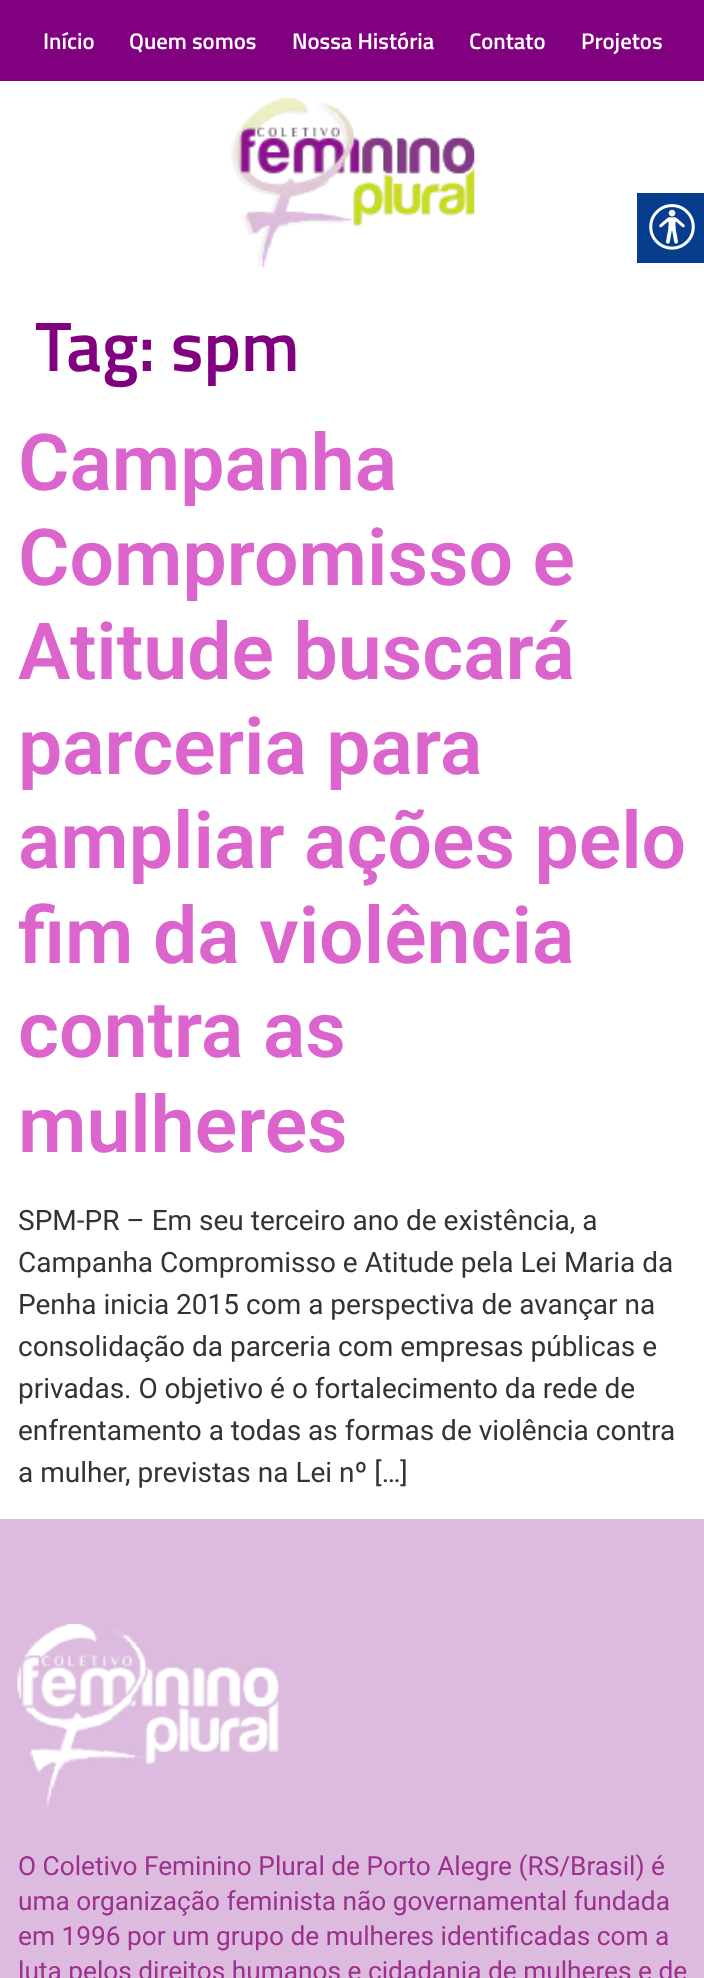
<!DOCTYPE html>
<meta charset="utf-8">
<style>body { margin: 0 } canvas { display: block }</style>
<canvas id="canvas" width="704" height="1978"></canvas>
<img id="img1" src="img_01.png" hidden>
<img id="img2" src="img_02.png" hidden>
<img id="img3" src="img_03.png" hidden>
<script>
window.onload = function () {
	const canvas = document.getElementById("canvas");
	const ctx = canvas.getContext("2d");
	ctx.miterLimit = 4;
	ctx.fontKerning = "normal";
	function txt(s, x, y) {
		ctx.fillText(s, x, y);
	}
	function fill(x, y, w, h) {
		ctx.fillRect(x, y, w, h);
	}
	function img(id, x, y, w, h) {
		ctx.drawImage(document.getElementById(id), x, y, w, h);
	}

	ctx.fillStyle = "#FFFFFF";
	fill(0, 0, 704, 1978);
	ctx.fillStyle = "#800080";
	fill(0, 0, 704, 81);
	img("img1", 231, 98, 244, 170);
	ctx.fillStyle = "#063D8D";
	fill(637, 193, 67, 70);
	img("img2", 649, 204, 46, 46);
	ctx.fillStyle = "#DCBBDE";
	fill(0, 1519, 704, 459);
	img("img3", 17, 1624, 262, 184);
	ctx.font = "600 22.75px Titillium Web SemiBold";
	ctx.fillStyle = "#FFFFFF";
	txt("Início", 43, 49);
	txt("Quem somos", 129, 49);
	txt("Nossa História", 292, 49);
	txt("Contato", 469, 49);
	txt("Projetos", 581, 49);
	ctx.font = "600 70px Titillium Web SemiBold";
	ctx.fillStyle = "#800080";
	txt("Tag: spm", 35, 371);
	ctx.font = "600 78.75px Roboto";
	ctx.fillStyle = "#DB65CD";
	txt("Campanha", 18, 490);
	txt("Compromisso e", 18, 585);
	txt("Atitude buscará", 18, 679);
	txt("parceria para", 18, 774);
	txt("ampliar ações pelo", 18, 868);
	txt("fim da violência", 18, 963);
	txt("contra as", 18, 1057);
	txt("mulheres", 18, 1152);
	ctx.font = "28px Roboto";
	ctx.fillStyle = "#333333";
	txt("SPM-PR – Em seu terceiro ano de existência, a", 18, 1230);
	txt("Campanha Compromisso e Atitude pela Lei Maria da", 18, 1272);
	txt("Penha inicia 2015 com a perspectiva de avançar na", 18, 1314);
	txt("consolidação da parceria com empresas públicas e", 18, 1356);
	txt("privadas. O objetivo é o fortalecimento da rede de", 18, 1398);
	txt("enfrentamento a todas as formas de violência contra", 18, 1440);
	txt("a mulher, previstas na Lei nº […]", 18, 1482);
	ctx.font = "26.25px Roboto";
	ctx.fillStyle = "#9C308F";
	txt("O Coletivo Feminino Plural de Porto Alegre (RS/Brasil) é", 18, 1875);
	txt("uma organização feminista não governamental fundada", 18, 1910);
	txt("em 1996 por um grupo de mulheres identificadas com a", 18, 1945);
	txt("luta pelos direitos humanos e cidadania de mulheres e de", 18, 1980);
};
</script>
